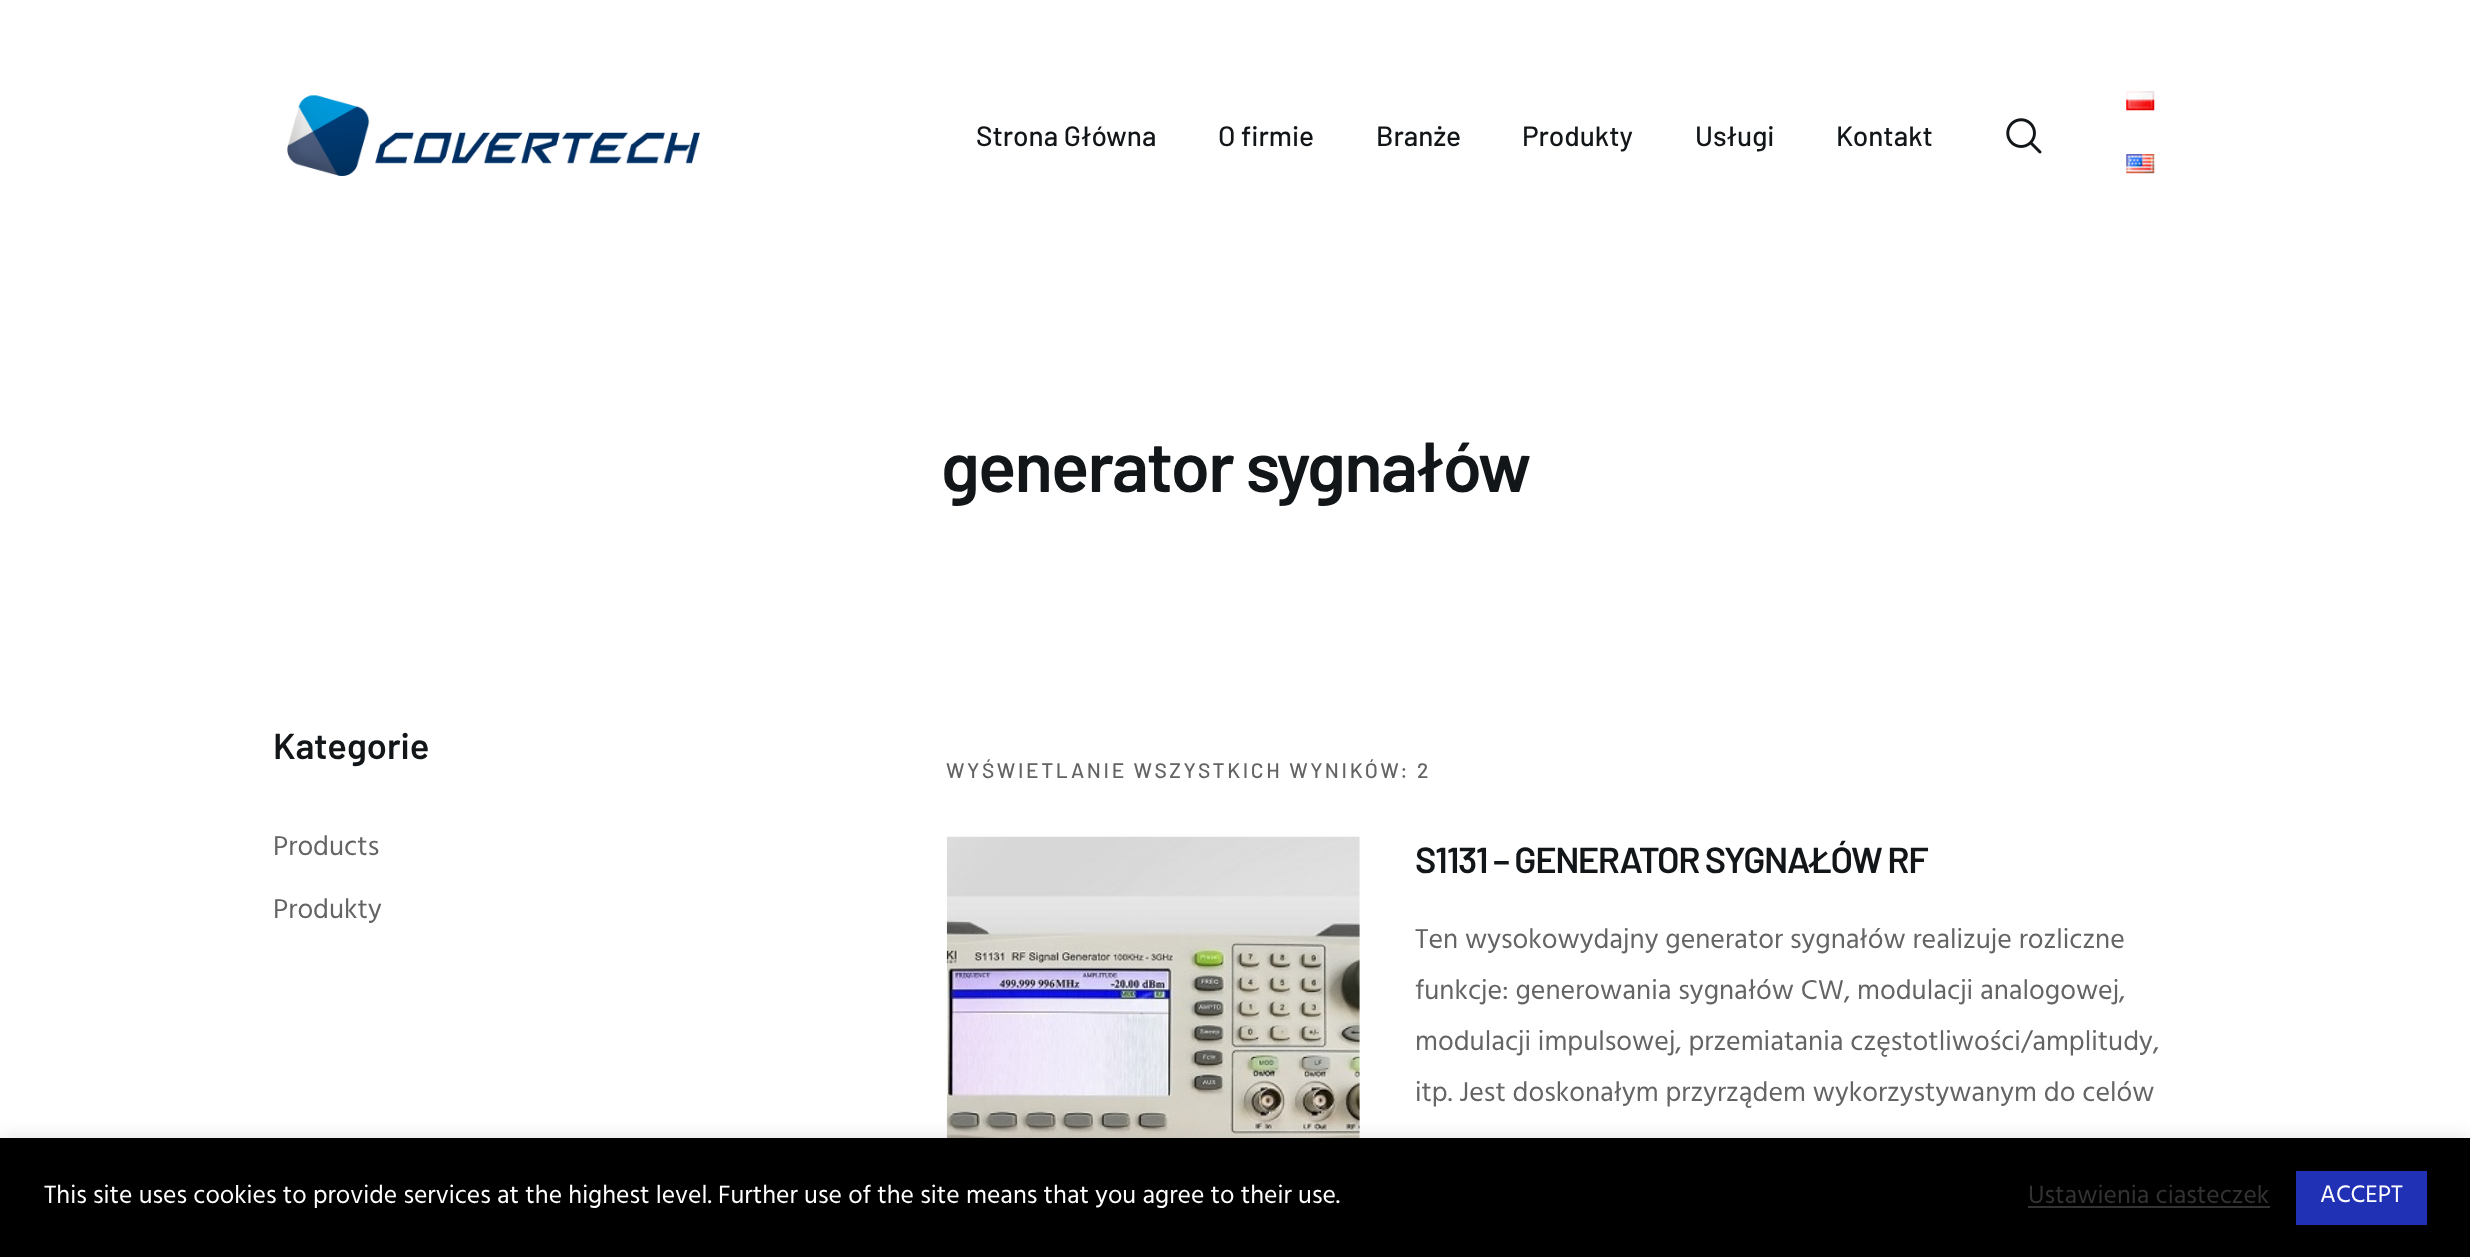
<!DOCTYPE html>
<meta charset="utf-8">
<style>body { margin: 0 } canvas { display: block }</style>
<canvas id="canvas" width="2470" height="1257"></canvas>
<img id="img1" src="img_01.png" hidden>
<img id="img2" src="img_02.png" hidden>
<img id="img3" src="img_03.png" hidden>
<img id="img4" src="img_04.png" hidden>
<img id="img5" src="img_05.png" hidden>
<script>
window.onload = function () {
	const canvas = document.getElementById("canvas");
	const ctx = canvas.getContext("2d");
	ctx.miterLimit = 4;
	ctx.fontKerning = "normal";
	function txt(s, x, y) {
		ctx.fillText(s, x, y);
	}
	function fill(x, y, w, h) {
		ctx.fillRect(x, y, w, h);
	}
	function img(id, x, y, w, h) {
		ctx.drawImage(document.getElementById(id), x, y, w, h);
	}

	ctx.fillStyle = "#FFFFFF";
	fill(0, 0, 2470, 1257);
	img("img1", 287, 95, 413, 81);
	img("img2", 2006, 118, 36, 36);
	img("img3", 2126, 91, 29, 20);
	img("img4", 2126, 154, 29, 20);
	img("img5", 946, 836, 414, 302);
	ctx.fillStyle = "rgba(172, 171, 171, 0.3)";
	ctx.filter = "blur(9px)";
	ctx.beginPath();
	ctx.rect(0, 1136, 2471, 121);
	ctx.fill();
	ctx.filter = "none";
	ctx.fillStyle = "#000000";
	fill(0, 1138, 2470, 119);
	ctx.fillStyle = "#333333";
	fill(2028, 1206, 242, 2);
	ctx.fillStyle = "#2131B6";
	fill(2296, 1171, 131, 54);
	ctx.font = "500 28px Barlow";
	ctx.fillStyle = "#121619";
	txt("Strona Główna", 976, 146);
	txt("O firmie", 1218, 146);
	txt("Branże", 1376, 146);
	txt("Produkty", 1522, 146);
	txt("Usługi", 1695, 146);
	txt("Kontakt", 1836, 146);
	ctx.letterSpacing = "-1.75px";
	ctx.font = "600 70.75px Barlow";
	txt("generator sygnałów", 941, 492);
	ctx.letterSpacing = "0px";
	ctx.font = "600 36.25px Barlow";
	txt("Kategorie", 273, 759);
	ctx.font = "28px Hind";
	ctx.fillStyle = "#646464";
	txt("Products", 273, 855);
	txt("Produkty", 273, 918);
	ctx.letterSpacing = "2.6px";
	ctx.font = "500 21px Barlow";
	txt("WYŚWIETLANIE WSZYSTKICH WYNIKÓW: 2", 946, 778);
	ctx.letterSpacing = "-1.4px";
	ctx.font = "600 36.25px Barlow";
	ctx.fillStyle = "#121619";
	txt("S1131 – GENERATOR SYGNAŁÓW RF", 1415, 873);
	ctx.letterSpacing = "0px";
	ctx.font = "28px Hind";
	ctx.fillStyle = "#646464";
	txt("Ten wysokowydajny generator sygnałów realizuje rozliczne", 1415, 948);
	txt("funkcje: generowania sygnałów CW, modulacji analogowej,", 1415, 999);
	txt("modulacji impulsowej, przemiatania częstotliwości/amplitudy,", 1415, 1050);
	txt("itp. Jest doskonałym przyrządem wykorzystywanym do celów", 1415, 1101);
	ctx.font = "25.67px Hind";
	ctx.fillStyle = "#FFFFFF";
	txt("This site uses cookies to provide services at the highest level. Further use of the site means that you agree to their use.", 44, 1203);
	ctx.fillStyle = "#333333";
	txt("Ustawienia ciasteczek", 2028, 1203);
	ctx.font = "24.5px Hind";
	ctx.fillStyle = "#FFFFFF";
	txt("ACCEPT", 2320, 1202);
};
</script>
